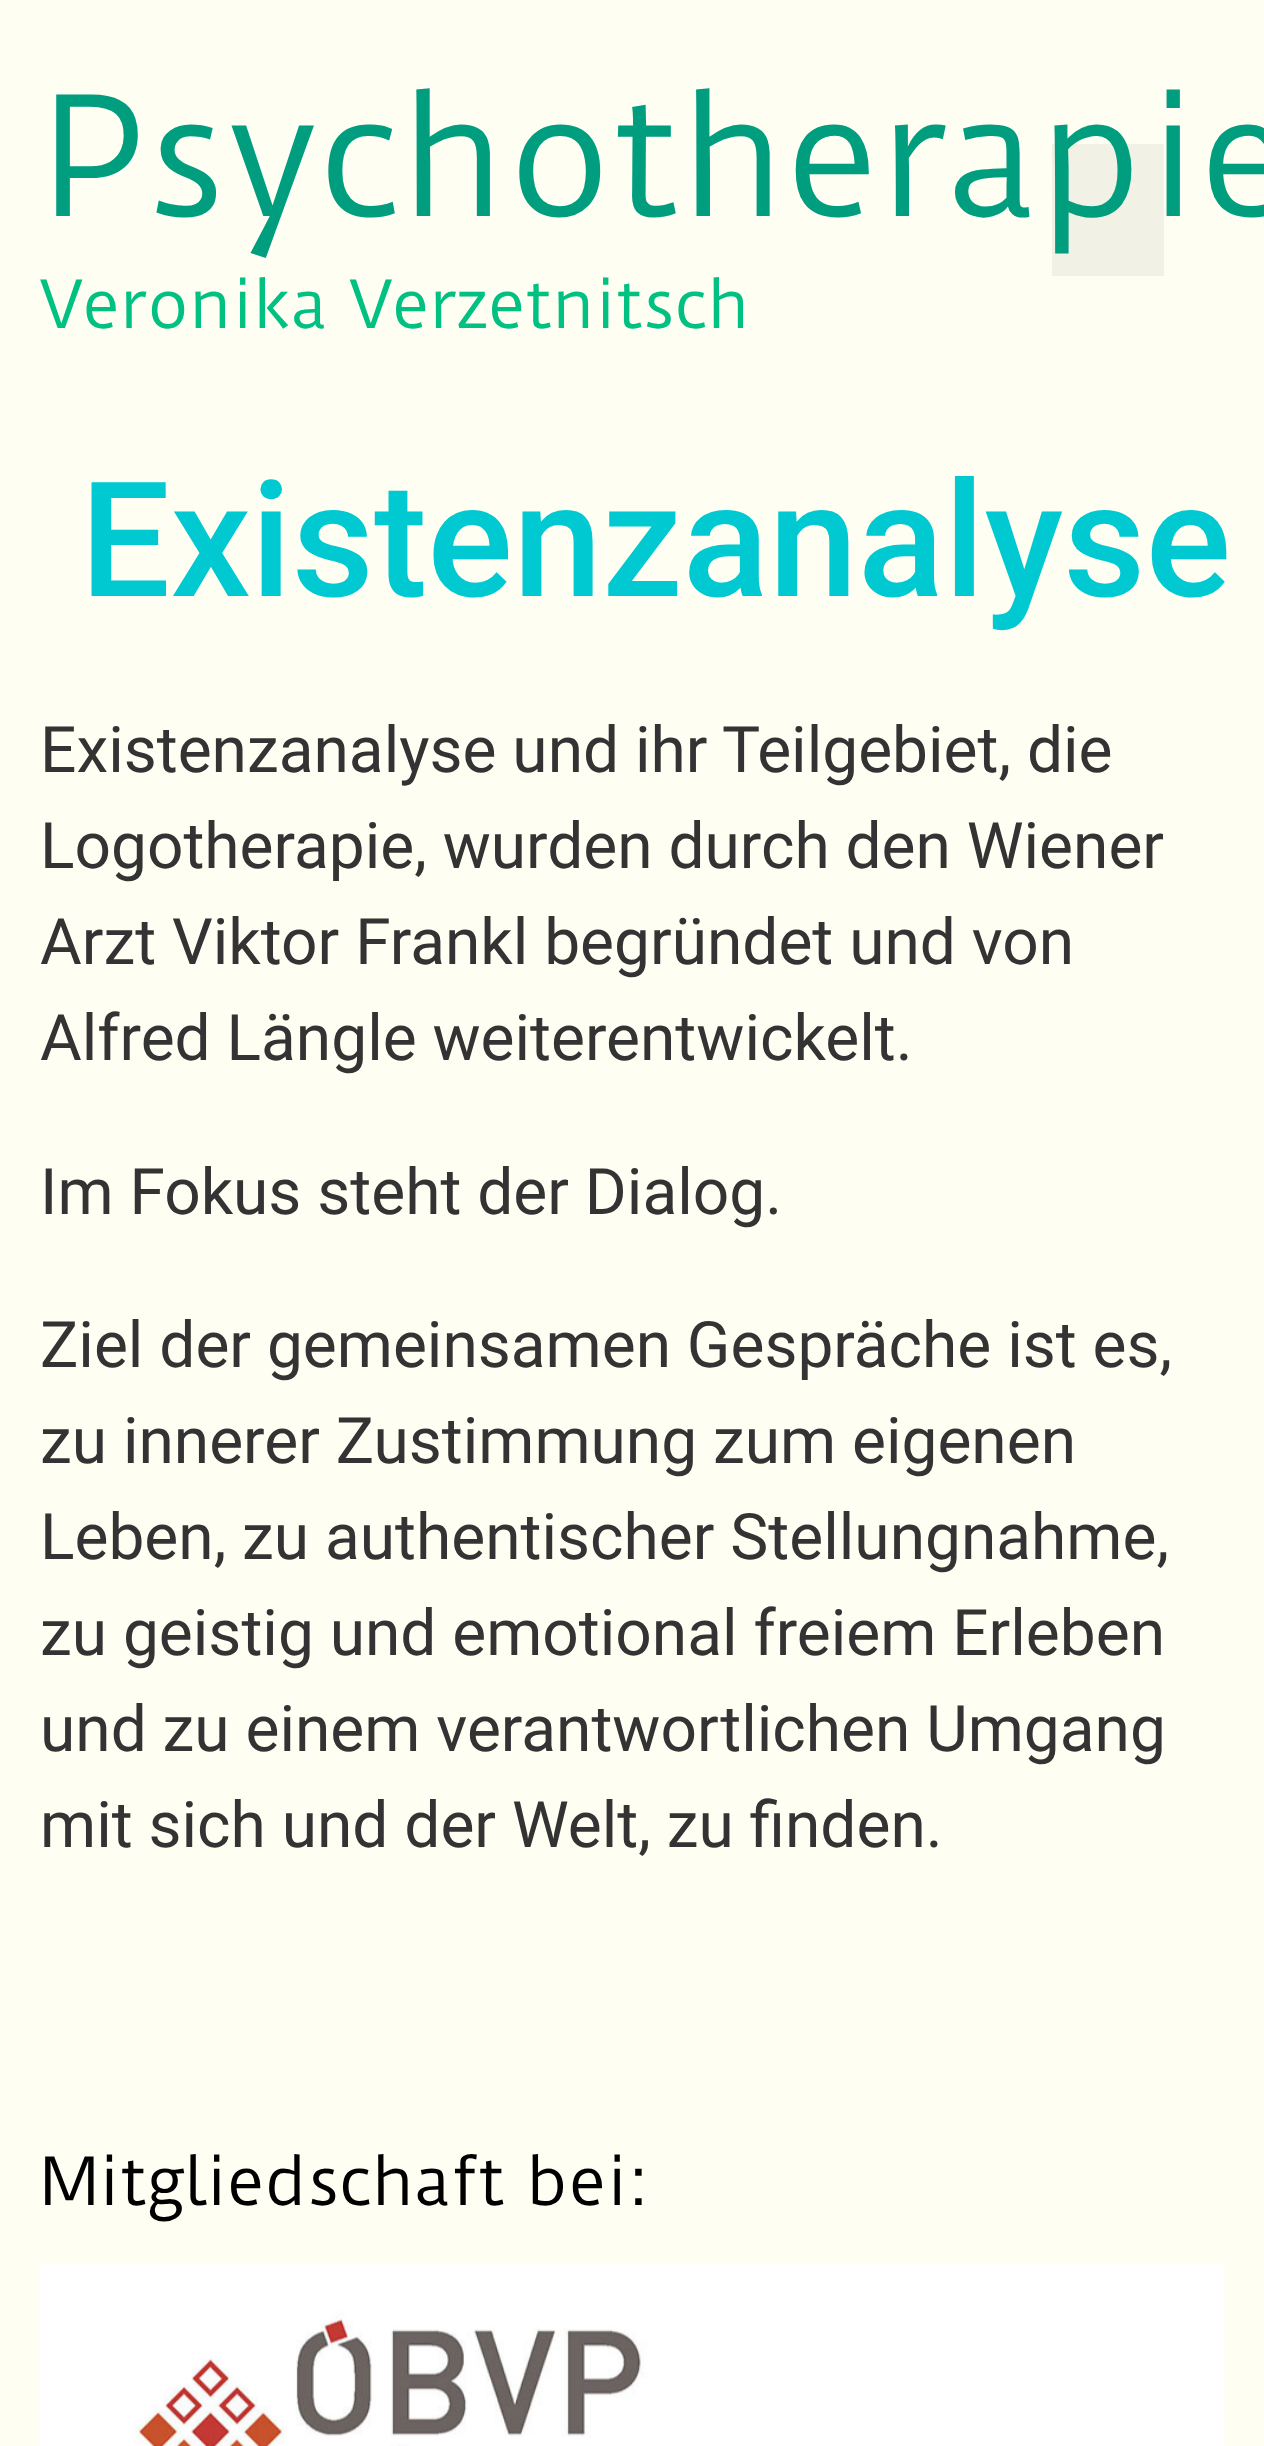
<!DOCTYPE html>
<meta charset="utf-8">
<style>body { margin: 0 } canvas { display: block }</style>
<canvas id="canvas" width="1264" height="2446"></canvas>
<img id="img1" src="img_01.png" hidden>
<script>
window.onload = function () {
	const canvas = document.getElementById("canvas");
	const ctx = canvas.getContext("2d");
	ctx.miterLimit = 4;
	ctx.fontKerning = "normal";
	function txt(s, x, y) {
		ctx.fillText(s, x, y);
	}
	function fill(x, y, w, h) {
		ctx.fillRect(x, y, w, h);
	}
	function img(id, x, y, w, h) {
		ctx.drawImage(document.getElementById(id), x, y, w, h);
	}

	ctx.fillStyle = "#FFFEF2";
	fill(0, 0, 1264, 2446);
	ctx.fillStyle = "rgba(0, 0, 0, 0.05)";
	fill(1052, 144, 112, 132);
	img("img1", 40, 2264, 1184, 182);
	ctx.font = "160px Duru Sans";
	ctx.fillStyle = "#009E7F";
	txt("Psychotherapie", 40, 216);
	ctx.font = "64px Duru Sans";
	ctx.fillStyle = "#00C082";
	txt("Veronika Verzetnitsch", 40, 328);
	ctx.font = "500 160px Roboto";
	ctx.fillStyle = "#00C9D1";
	txt("Existenzanalyse", 80, 596);
	ctx.font = "64px Roboto";
	ctx.fillStyle = "#333333";
	txt("Existenzanalyse und ihr Teilgebiet, die", 40, 772);
	txt("Logotherapie, wurden durch den Wiener", 40, 868);
	txt("Arzt Viktor Frankl begründet und von", 40, 964);
	txt("Alfred Längle weiterentwickelt.", 40, 1060);
	txt("Im Fokus steht der Dialog.", 40, 1214);
	txt("Ziel der gemeinsamen Gespräche ist es,", 40, 1367);
	txt("zu innerer Zustimmung zum eigenen", 40, 1463);
	txt("Leben, zu authentischer Stellungnahme,", 40, 1559);
	txt("zu geistig und emotional freiem Erleben", 40, 1655);
	txt("und zu einem verantwortlichen Umgang", 40, 1751);
	txt("mit sich und der Welt, zu finden.", 40, 1847);
	ctx.font = "64px Duru Sans";
	ctx.fillStyle = "#000000";
	txt("Mitgliedschaft bei:", 40, 2205);
};
</script>
